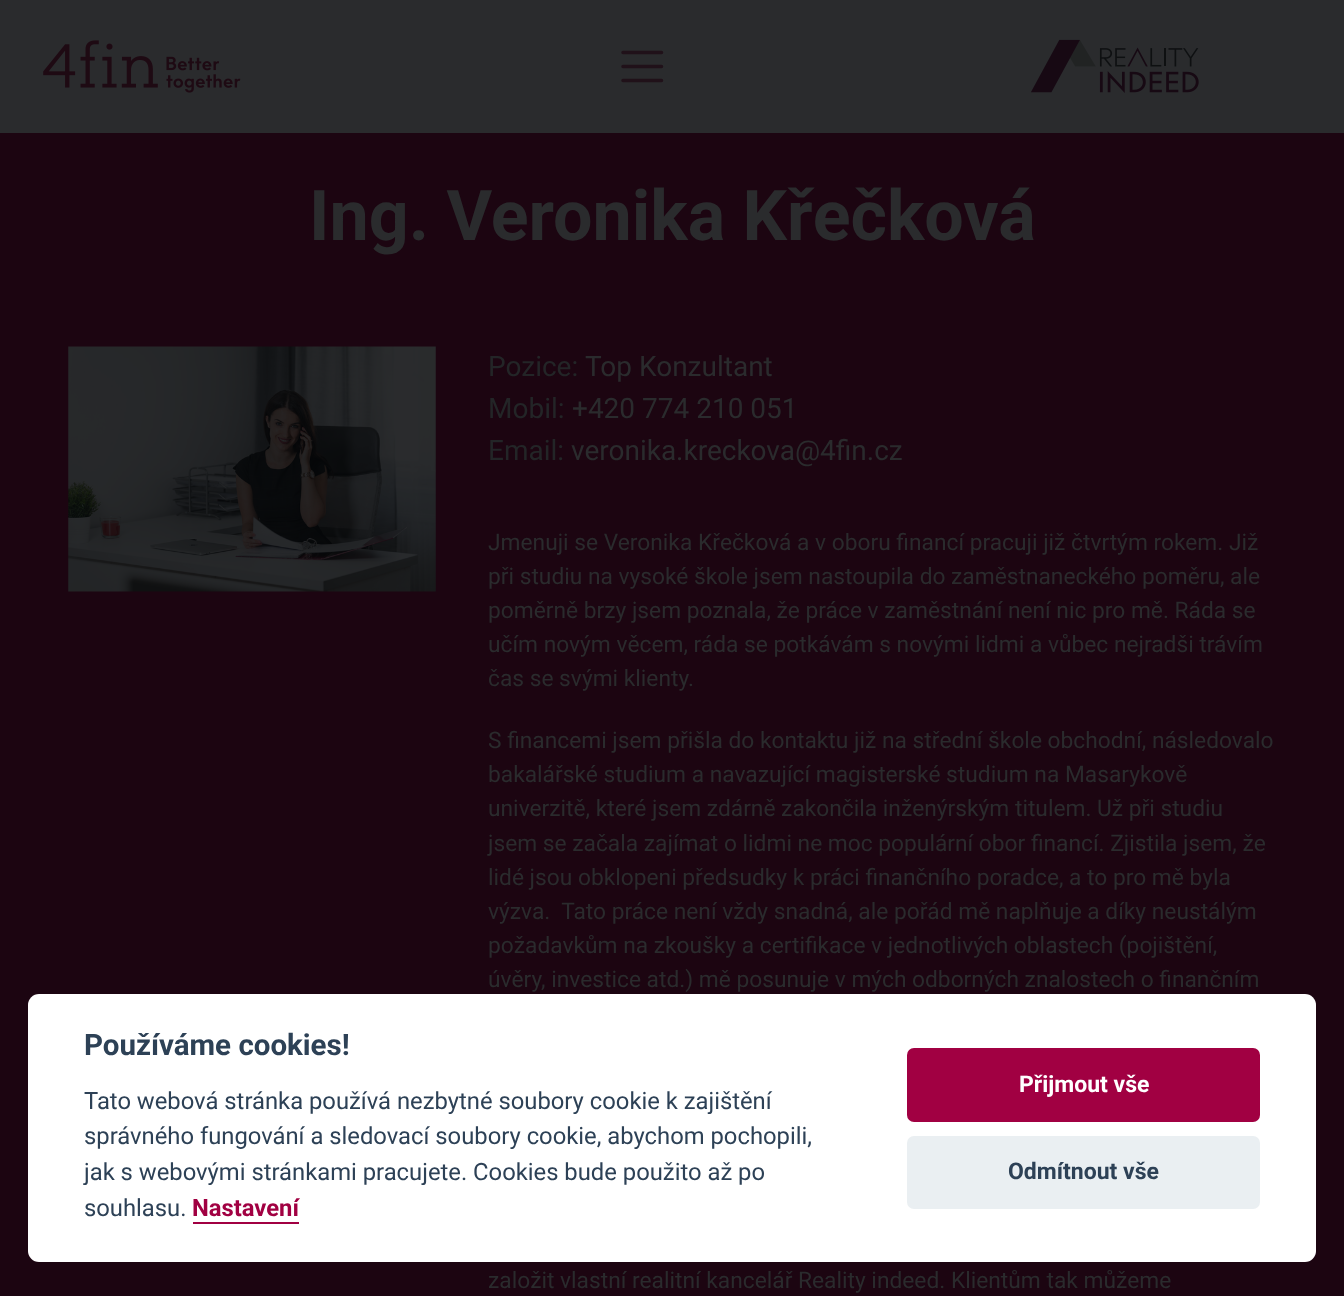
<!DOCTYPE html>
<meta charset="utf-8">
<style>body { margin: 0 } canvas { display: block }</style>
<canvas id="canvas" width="1344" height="1296"></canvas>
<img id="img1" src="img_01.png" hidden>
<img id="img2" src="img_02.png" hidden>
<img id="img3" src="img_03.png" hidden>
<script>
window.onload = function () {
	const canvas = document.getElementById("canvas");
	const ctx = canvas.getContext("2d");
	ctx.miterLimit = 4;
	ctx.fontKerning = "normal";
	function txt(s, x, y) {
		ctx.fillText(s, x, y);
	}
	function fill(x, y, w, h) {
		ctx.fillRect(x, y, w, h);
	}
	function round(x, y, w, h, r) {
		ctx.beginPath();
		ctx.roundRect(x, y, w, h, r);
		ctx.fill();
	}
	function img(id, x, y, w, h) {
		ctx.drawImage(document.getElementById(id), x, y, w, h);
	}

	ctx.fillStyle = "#1C0511";
	fill(0, 0, 1344, 1296);
	ctx.fillStyle = "#2A2B2D";
	fill(0, 0, 1344, 133);
	img("img1", 43, 40, 198, 53);
	ctx.beginPath();
	ctx.moveTo(623, 52.5);
	ctx.lineTo(661.5, 52.5);
	ctx.moveTo(623, 66.5);
	ctx.lineTo(661.5, 66.5);
	ctx.moveTo(623, 80.5);
	ctx.lineTo(661.5, 80.5);
	ctx.strokeStyle = "#201119";
	ctx.lineWidth = 3.5;
	ctx.lineCap = "round";
	ctx.stroke();
	img("img2", 1030, 39, 169, 54);
	img("img3", 68, 346, 368, 246);
	ctx.fillStyle = "#FFFFFF";
	round(28, 994, 1288, 268, 11);
	ctx.fillStyle = "#A10042";
	fill(193, 1222, 106, 2);
	round(907, 1048, 353, 74, 7);
	ctx.fillStyle = "#EAEFF2";
	round(907, 1136, 353, 73, 7);
	ctx.font = "bold 70px Roboto";
	ctx.fillStyle = "#2A2B2D";
	txt("Ing. Veronika Křečková", 309, 240);
	ctx.font = "28px Roboto";
	ctx.fillStyle = "#232527";
	txt("Pozice:", 488, 376);
	ctx.fillStyle = "#2A2B2D";
	txt("Top Konzultant", 585, 376);
	ctx.fillStyle = "#232527";
	txt("Mobil:", 488, 418);
	ctx.fillStyle = "#2A2B2D";
	txt("+420 774 210 051", 572, 418);
	ctx.fillStyle = "#232527";
	txt("Email:", 488, 460);
	ctx.fillStyle = "#2A2B2D";
	txt("veronika.kreckova@4fin.cz", 571, 460);
	ctx.font = "22.75px Roboto";
	txt("Jmenuji se Veronika Křečková a v oboru financí pracuji již čtvrtým rokem. Již", 488, 550);
	txt("při studiu na vysoké škole jsem nastoupila do zaměstnaneckého poměru, ale", 488, 584);
	txt("poměrně brzy jsem poznala, že práce v zaměstnání není nic pro mě. Ráda se", 488, 618);
	txt("učím novým věcem, ráda se potkávám s novými lidmi a vůbec nejradši trávím", 488, 652);
	txt("čas se svými klienty.", 488, 686);
	txt("S financemi jsem přišla do kontaktu již na střední škole obchodní, následovalo", 488, 748);
	txt("bakalářské studium a navazující magisterské studium na Masarykově", 488, 782);
	txt("univerzitě, které jsem zdárně zakončila inženýrským titulem. Už při studiu", 488, 816);
	txt("jsem se začala zajímat o lidmi ne moc populární obor financí. Zjistila jsem, že", 488, 851);
	txt("lidé jsou obklopeni předsudky k práci finančního poradce, a to pro mě byla", 488, 885);
	txt("výzva.  Tato práce není vždy snadná, ale pořád mě naplňuje a díky neustálým", 488, 919);
	txt("požadavkům na zkoušky a certifikace v jednotlivých oblastech (pojištění,", 488, 953);
	txt("úvěry, investice atd.) mě posunuje v mých odborných znalostech o finančním", 488, 987);
	txt("založit vlastní realitní kancelář Reality indeed. Klientům tak můžeme", 488, 1288);
	ctx.font = "bold 29.5px Roboto";
	ctx.fillStyle = "#2D4156";
	txt("Používáme cookies!", 84, 1055);
	ctx.font = "23.8px Roboto";
	txt("Tato webová stránka používá nezbytné soubory cookie k zajištění", 84, 1109);
	txt("správného fungování a sledovací soubory cookie, abychom pochopili,", 84, 1144);
	txt("jak s webovými stránkami pracujete. Cookies bude použito až po", 84, 1180);
	txt("souhlasu.", 84, 1216);
	ctx.font = "bold 23.8px Roboto";
	ctx.fillStyle = "#A10042";
	txt("Nastavení", 192, 1216);
	ctx.font = "bold 23px Roboto";
	ctx.fillStyle = "#FFFFFF";
	txt("Přijmout vše", 1019, 1092);
	ctx.fillStyle = "#2D4156";
	txt("Odmítnout vše", 1008, 1179);
};
</script>
